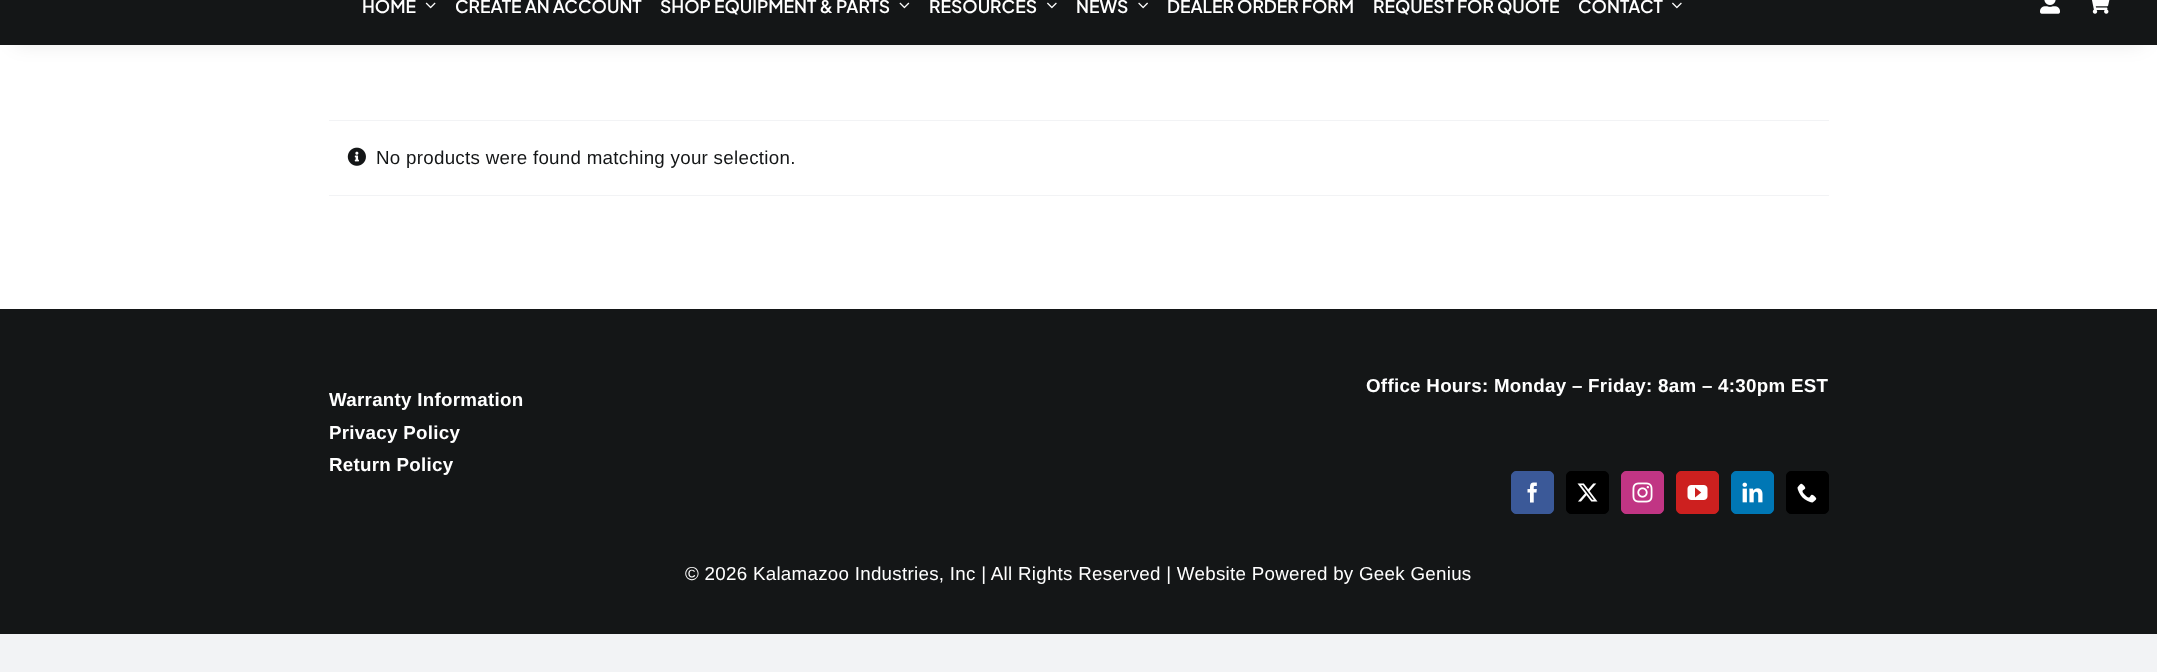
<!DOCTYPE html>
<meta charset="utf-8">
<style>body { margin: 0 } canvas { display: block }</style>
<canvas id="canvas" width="2157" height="672"></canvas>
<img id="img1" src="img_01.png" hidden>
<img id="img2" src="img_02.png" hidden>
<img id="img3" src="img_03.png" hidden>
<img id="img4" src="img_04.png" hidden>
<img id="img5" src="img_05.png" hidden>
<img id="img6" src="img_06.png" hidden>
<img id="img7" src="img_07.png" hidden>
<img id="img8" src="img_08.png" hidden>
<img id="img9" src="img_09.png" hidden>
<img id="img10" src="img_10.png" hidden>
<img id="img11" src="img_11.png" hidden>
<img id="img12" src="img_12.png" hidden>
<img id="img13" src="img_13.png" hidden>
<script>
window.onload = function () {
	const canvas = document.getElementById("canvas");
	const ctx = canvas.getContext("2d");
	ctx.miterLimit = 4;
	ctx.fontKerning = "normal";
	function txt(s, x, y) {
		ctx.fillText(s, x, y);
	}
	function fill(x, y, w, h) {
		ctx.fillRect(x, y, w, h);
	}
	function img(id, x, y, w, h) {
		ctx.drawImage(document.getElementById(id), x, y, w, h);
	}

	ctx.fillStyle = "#F2F3F5";
	fill(0, 0, 2157, 672);
	ctx.fillStyle = "#FFFFFF";
	fill(0, 45, 2157, 264);
	ctx.fillStyle = "rgba(0, 0, 0, 0.1)";
	ctx.filter = "blur(10px)";
	ctx.beginPath();
	ctx.rect(15, -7, 2128, 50);
	ctx.fill();
	ctx.filter = "none";
	ctx.fillStyle = "#141617";
	fill(0, 0, 2157, 45);
	img("img1", 425, 2, 11, 7);
	img("img2", 899, 2, 11, 7);
	img("img3", 1047, 2, 10, 7);
	img("img4", 1138, 2, 10, 7);
	img("img3", 1672, 2, 10, 7);
	img("img5", 2040, 0, 20, 14);
	img("img6", 2092, 0, 18, 14);
	ctx.fillStyle = "#F2F3F5";
	fill(329, 120, 1500, 1);
	fill(329, 195, 1500, 1);
	img("img7", 347, 147, 19, 19);
	ctx.fillStyle = "#141617";
	fill(0, 309, 2157, 325);
	ctx.fillStyle = "#3B5998";
	ctx.beginPath();
	ctx.roundRect(1511.5, 471.5, 42, 42, 4.5);
	ctx.fill();
	ctx.strokeStyle = "#3B5998";
	ctx.stroke();
	img("img8", 1527, 482, 10, 21);
	ctx.fillStyle = "#000000";
	ctx.beginPath();
	ctx.roundRect(1566.5, 471.5, 42, 42, 4.5);
	ctx.fill();
	ctx.strokeStyle = "#000000";
	ctx.stroke();
	img("img9", 1577, 483, 21, 19);
	ctx.fillStyle = "#C13584";
	ctx.beginPath();
	ctx.roundRect(1621.5, 471.5, 42, 42, 4.5);
	ctx.fill();
	ctx.strokeStyle = "#C13584";
	ctx.stroke();
	img("img10", 1632, 482, 21, 21);
	ctx.fillStyle = "#CD201F";
	ctx.beginPath();
	ctx.roundRect(1676.5, 471.5, 42, 42, 4.5);
	ctx.fill();
	ctx.strokeStyle = "#CD201F";
	ctx.stroke();
	img("img11", 1687, 485, 21, 15);
	ctx.fillStyle = "#0077B5";
	ctx.beginPath();
	ctx.roundRect(1731.5, 471.5, 42, 42, 4.5);
	ctx.fill();
	ctx.strokeStyle = "#0077B5";
	ctx.stroke();
	img("img12", 1742, 482, 21, 21);
	ctx.fillStyle = "#000000";
	ctx.beginPath();
	ctx.roundRect(1786.5, 471.5, 42, 42, 4.5);
	ctx.fill();
	ctx.strokeStyle = "#000000";
	ctx.stroke();
	img("img13", 1797, 483, 20, 20);
	ctx.font = "600 17.5px Plus Jakarta Sans";
	ctx.fillStyle = "#FFFFFF";
	txt("HOME", 362, 13);
	txt("CREATE AN ACCOUNT", 455, 13);
	txt("SHOP EQUIPMENT & PARTS", 660, 13);
	txt("RESOURCES", 929, 13);
	txt("NEWS", 1076, 13);
	txt("DEALER ORDER FORM", 1167, 13);
	txt("REQUEST FOR QUOTE", 1373, 13);
	txt("CONTACT", 1578, 13);
	ctx.letterSpacing = "0.28px";
	ctx.font = "18.75px Liberation Sans";
	ctx.fillStyle = "#141617";
	txt("No products were found matching your selection.", 376, 164);
	ctx.font = "bold 18.75px Liberation Sans";
	ctx.fillStyle = "#FFFFFF";
	txt("Office Hours: Monday – Friday: 8am – 4:30pm EST", 1366, 392);
	txt("Warranty Information", 329, 406);
	txt("Privacy Policy", 329, 439);
	txt("Return Policy", 329, 471);
	ctx.font = "18.75px Liberation Sans";
	txt("© 2026 Kalamazoo Industries, Inc | All Rights Reserved | Website Powered by Geek Genius", 685, 580);
};
</script>
